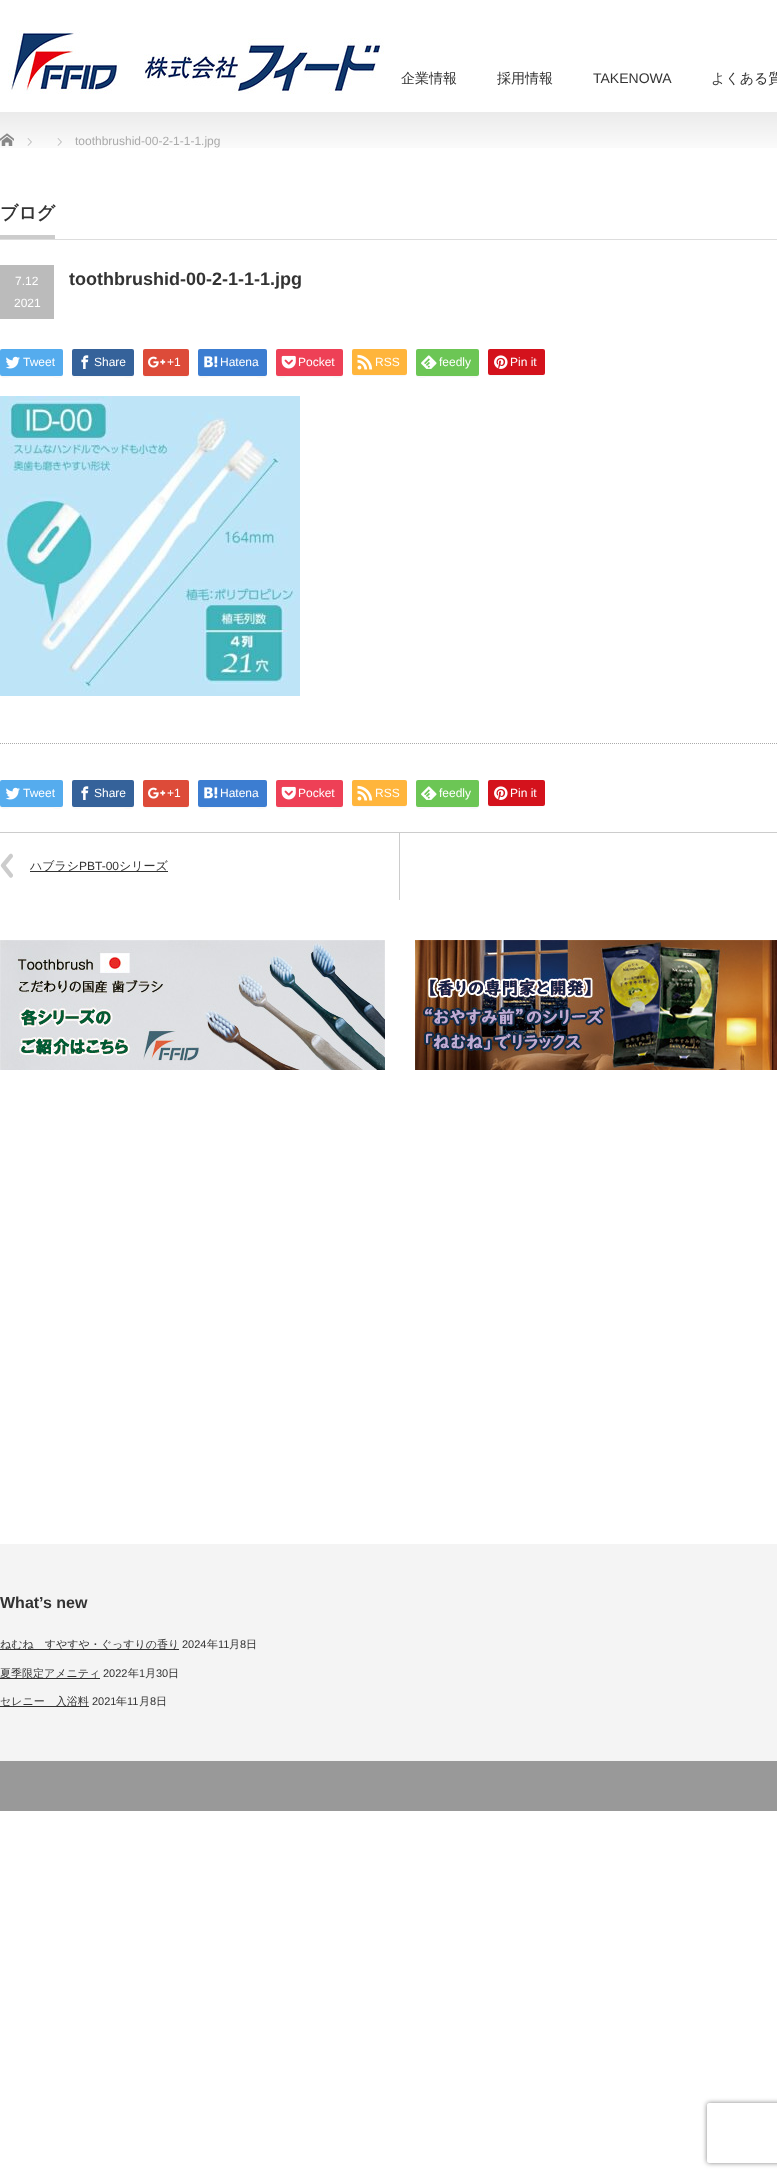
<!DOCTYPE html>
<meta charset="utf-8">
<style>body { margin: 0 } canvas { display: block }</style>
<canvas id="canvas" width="777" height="2177"></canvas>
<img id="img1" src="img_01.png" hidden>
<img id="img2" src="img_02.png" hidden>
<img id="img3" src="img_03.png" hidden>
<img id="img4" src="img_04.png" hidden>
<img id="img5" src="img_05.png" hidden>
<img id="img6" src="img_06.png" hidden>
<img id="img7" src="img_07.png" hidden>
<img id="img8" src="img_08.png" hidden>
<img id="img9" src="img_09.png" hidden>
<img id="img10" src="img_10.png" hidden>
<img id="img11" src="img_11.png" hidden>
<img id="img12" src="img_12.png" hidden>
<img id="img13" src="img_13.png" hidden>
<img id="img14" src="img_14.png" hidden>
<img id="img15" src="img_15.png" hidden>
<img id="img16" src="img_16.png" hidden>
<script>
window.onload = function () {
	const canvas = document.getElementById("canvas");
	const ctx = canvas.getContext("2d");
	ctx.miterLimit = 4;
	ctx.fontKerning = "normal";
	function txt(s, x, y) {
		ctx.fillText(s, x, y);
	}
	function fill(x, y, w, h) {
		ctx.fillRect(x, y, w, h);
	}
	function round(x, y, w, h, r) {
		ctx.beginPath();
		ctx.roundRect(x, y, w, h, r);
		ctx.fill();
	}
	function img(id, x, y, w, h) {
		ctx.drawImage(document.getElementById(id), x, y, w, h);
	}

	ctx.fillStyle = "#FFFFFF";
	fill(0, 0, 777, 2177);
	img("img1", 8, 30, 376, 64);
	img("img2", 0, 112, 777, 36);
	img("img3", 0, 133, 14, 13);
	img("img4", 27, 138, 5, 8);
	img("img4", 57, 138, 5, 8);
	ctx.fillStyle = "#DDDDDD";
	fill(0, 239, 777, 1);
	ctx.fillStyle = "#CCCCCC";
	fill(0, 235, 55, 4);
	ctx.fillStyle = "#BBBBBB";
	fill(0, 265, 54, 54);
	ctx.fillStyle = "#F7F7F7";
	ctx.beginPath();
	ctx.moveTo(0, 374);
	ctx.bezierCurveTo(0, 380, 8, 377, 12, 377);
	ctx.lineTo(51, 377);
	ctx.bezierCurveTo(55, 377, 63, 380, 63, 374);
	ctx.bezierCurveTo(63, 378, 55, 376, 51, 376);
	ctx.lineTo(1, 376);
	ctx.closePath();
	ctx.fill();
	ctx.fillStyle = "#55ACEE";
	round(0, 349, 63, 27, 2);
	img("img5", 5, 356, 15, 13);
	ctx.fillStyle = "#F7F7F7";
	ctx.beginPath();
	ctx.moveTo(72, 374);
	ctx.bezierCurveTo(72, 380, 80, 377, 84, 377);
	ctx.lineTo(122, 377);
	ctx.bezierCurveTo(126, 377, 134, 380, 134, 374);
	ctx.lineTo(133, 376);
	ctx.lineTo(84, 376);
	ctx.bezierCurveTo(80, 376, 72, 378, 72, 374);
	ctx.closePath();
	ctx.fill();
	ctx.fillStyle = "#35629A";
	round(72, 349, 62, 27, 2);
	img("img6", 81, 355, 8, 14);
	ctx.fillStyle = "#F7F7F7";
	ctx.beginPath();
	ctx.moveTo(143, 374);
	ctx.bezierCurveTo(143, 379, 148, 377, 152, 377);
	ctx.lineTo(180, 377);
	ctx.bezierCurveTo(184, 377, 189, 379, 189, 374);
	ctx.bezierCurveTo(189, 375, 188, 376, 187, 376);
	ctx.lineTo(145, 376);
	ctx.bezierCurveTo(144, 376, 143, 375, 143, 374);
	ctx.closePath();
	ctx.fill();
	ctx.fillStyle = "#DD4B39";
	round(143, 349, 46, 27, 2);
	img("img7", 148, 356, 18, 12);
	ctx.fillStyle = "#F7F7F7";
	ctx.beginPath();
	ctx.moveTo(198, 374);
	ctx.bezierCurveTo(198, 380, 207, 377, 211, 377);
	ctx.lineTo(254, 377);
	ctx.bezierCurveTo(258, 377, 267, 380, 267, 374);
	ctx.bezierCurveTo(267, 375, 266, 376, 265, 376);
	ctx.lineTo(199, 376);
	ctx.closePath();
	ctx.fill();
	ctx.fillStyle = "#3C7DD1";
	round(198, 349, 69, 27, 2);
	img("img8", 204, 356, 14, 12);
	ctx.fillStyle = "#F7F7F7";
	ctx.beginPath();
	ctx.moveTo(276, 374);
	ctx.bezierCurveTo(276, 380, 285, 377, 288, 377);
	ctx.lineTo(330, 377);
	ctx.bezierCurveTo(334, 377, 343, 380, 343, 374);
	ctx.lineTo(342, 376);
	ctx.lineTo(278, 376);
	ctx.lineTo(276, 375);
	ctx.closePath();
	ctx.fill();
	ctx.fillStyle = "#EE4056";
	round(276, 349, 67, 27, 2);
	img("img9", 281, 355, 15, 14);
	ctx.fillStyle = "#F7F7F7";
	ctx.beginPath();
	ctx.moveTo(352, 373);
	ctx.bezierCurveTo(352, 378, 359, 376, 362, 376);
	ctx.lineTo(396, 376);
	ctx.bezierCurveTo(400, 376, 407, 378, 407, 373);
	ctx.lineTo(406, 375);
	ctx.lineTo(353, 375);
	ctx.closePath();
	ctx.fill();
	ctx.fillStyle = "#FFB53C";
	round(352, 349, 55, 26, 2);
	img("img10", 357, 354, 16, 16);
	ctx.fillStyle = "#F7F7F7";
	ctx.beginPath();
	ctx.moveTo(416, 374);
	ctx.bezierCurveTo(416, 380, 424, 377, 428, 377);
	ctx.lineTo(467, 377);
	ctx.bezierCurveTo(471, 377, 479, 380, 479, 374);
	ctx.lineTo(478, 376);
	ctx.lineTo(428, 376);
	ctx.bezierCurveTo(424, 376, 416, 378, 416, 374);
	ctx.closePath();
	ctx.fill();
	ctx.fillStyle = "#6CC655";
	round(416, 349, 63, 27, 2);
	img("img11", 421, 355, 16, 14);
	ctx.fillStyle = "#F7F7F7";
	ctx.beginPath();
	ctx.moveTo(488, 373);
	ctx.bezierCurveTo(488, 378, 495, 376, 499, 376);
	ctx.lineTo(534, 376);
	ctx.bezierCurveTo(538, 376, 545, 378, 545, 373);
	ctx.bezierCurveTo(545, 377, 538, 375, 534, 375);
	ctx.lineTo(489, 375);
	ctx.closePath();
	ctx.fill();
	ctx.fillStyle = "#D4121C";
	round(488, 349, 57, 26, 2);
	img("img12", 494, 355, 14, 14);
	img("img13", 0, 396, 300, 300);
	ctx.beginPath();
	ctx.moveTo(0, 743.5);
	ctx.lineTo(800, 743.5);
	ctx.strokeStyle = "#AAAAAA";
	ctx.setLineDash([1, 1]);
	ctx.stroke();
	ctx.fillStyle = "#F7F7F7";
	ctx.beginPath();
	ctx.moveTo(0, 805);
	ctx.bezierCurveTo(0, 811, 8, 808, 12, 808);
	ctx.lineTo(51, 808);
	ctx.bezierCurveTo(55, 808, 63, 811, 63, 805);
	ctx.bezierCurveTo(63, 809, 55, 807, 51, 807);
	ctx.lineTo(1, 807);
	ctx.closePath();
	ctx.fill();
	ctx.fillStyle = "#55ACEE";
	round(0, 780, 63, 27, 2);
	img("img5", 5, 787, 15, 13);
	ctx.fillStyle = "#F7F7F7";
	ctx.beginPath();
	ctx.moveTo(72, 805);
	ctx.bezierCurveTo(72, 811, 80, 808, 84, 808);
	ctx.lineTo(122, 808);
	ctx.bezierCurveTo(126, 808, 134, 811, 134, 805);
	ctx.lineTo(133, 807);
	ctx.lineTo(84, 807);
	ctx.bezierCurveTo(80, 807, 72, 809, 72, 805);
	ctx.closePath();
	ctx.fill();
	ctx.fillStyle = "#35629A";
	round(72, 780, 62, 27, 2);
	img("img6", 81, 786, 8, 14);
	ctx.fillStyle = "#F7F7F7";
	ctx.beginPath();
	ctx.moveTo(143, 805);
	ctx.bezierCurveTo(143, 810, 148, 808, 152, 808);
	ctx.lineTo(180, 808);
	ctx.bezierCurveTo(184, 808, 189, 810, 189, 805);
	ctx.bezierCurveTo(189, 806, 188, 807, 187, 807);
	ctx.lineTo(145, 807);
	ctx.bezierCurveTo(144, 807, 143, 806, 143, 805);
	ctx.closePath();
	ctx.fill();
	ctx.fillStyle = "#DD4B39";
	round(143, 780, 46, 27, 2);
	img("img7", 148, 787, 18, 12);
	ctx.fillStyle = "#F7F7F7";
	ctx.beginPath();
	ctx.moveTo(198, 805);
	ctx.bezierCurveTo(198, 811, 207, 808, 211, 808);
	ctx.lineTo(254, 808);
	ctx.bezierCurveTo(258, 808, 267, 811, 267, 805);
	ctx.bezierCurveTo(267, 806, 266, 807, 265, 807);
	ctx.lineTo(199, 807);
	ctx.closePath();
	ctx.fill();
	ctx.fillStyle = "#3C7DD1";
	round(198, 780, 69, 27, 2);
	img("img8", 204, 787, 14, 12);
	ctx.fillStyle = "#F7F7F7";
	ctx.beginPath();
	ctx.moveTo(276, 805);
	ctx.bezierCurveTo(276, 811, 285, 808, 288, 808);
	ctx.lineTo(330, 808);
	ctx.bezierCurveTo(334, 808, 343, 811, 343, 805);
	ctx.lineTo(342, 807);
	ctx.lineTo(278, 807);
	ctx.lineTo(276, 806);
	ctx.closePath();
	ctx.fill();
	ctx.fillStyle = "#EE4056";
	round(276, 780, 67, 27, 2);
	img("img9", 281, 786, 15, 14);
	ctx.fillStyle = "#F7F7F7";
	ctx.beginPath();
	ctx.moveTo(352, 804);
	ctx.bezierCurveTo(352, 809, 359, 807, 362, 807);
	ctx.lineTo(396, 807);
	ctx.bezierCurveTo(400, 807, 407, 809, 407, 804);
	ctx.lineTo(406, 806);
	ctx.lineTo(353, 806);
	ctx.closePath();
	ctx.fill();
	ctx.fillStyle = "#FFB53C";
	round(352, 780, 55, 26, 2);
	img("img10", 357, 785, 16, 16);
	ctx.fillStyle = "#F7F7F7";
	ctx.beginPath();
	ctx.moveTo(416, 805);
	ctx.bezierCurveTo(416, 811, 424, 808, 428, 808);
	ctx.lineTo(467, 808);
	ctx.bezierCurveTo(471, 808, 479, 811, 479, 805);
	ctx.lineTo(478, 807);
	ctx.lineTo(428, 807);
	ctx.bezierCurveTo(424, 807, 416, 809, 416, 805);
	ctx.closePath();
	ctx.fill();
	ctx.fillStyle = "#6CC655";
	round(416, 780, 63, 27, 2);
	img("img11", 421, 786, 16, 14);
	ctx.fillStyle = "#F7F7F7";
	ctx.beginPath();
	ctx.moveTo(488, 804);
	ctx.bezierCurveTo(488, 809, 495, 807, 499, 807);
	ctx.lineTo(534, 807);
	ctx.bezierCurveTo(538, 807, 545, 809, 545, 804);
	ctx.bezierCurveTo(545, 808, 538, 806, 534, 806);
	ctx.lineTo(489, 806);
	ctx.closePath();
	ctx.fill();
	ctx.fillStyle = "#D4121C";
	round(488, 780, 57, 26, 2);
	img("img12", 494, 786, 14, 14);
	ctx.fillStyle = "#CCCCCC";
	fill(0, 832, 777, 1);
	img("img14", 0, 853, 13, 25);
	fill(399, 833, 1, 67);
	ctx.fillStyle = "#333333";
	fill(30, 871, 138, 1);
	img("img15", 0, 940, 385, 130);
	img("img16", 415, 940, 362, 130);
	ctx.fillStyle = "#F4F4F4";
	fill(0, 1544, 777, 217);
	ctx.fillStyle = "#333333";
	fill(0, 1649, 179, 1);
	fill(0, 1678, 100, 1);
	fill(0, 1706, 89, 1);
	ctx.fillStyle = "#999999";
	fill(0, 1761, 777, 50);
	ctx.save();
	ctx.beginPath();
	ctx.moveTo(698, 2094);
	ctx.lineTo(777, 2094);
	ctx.lineTo(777, 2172);
	ctx.lineTo(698, 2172);
	ctx.closePath();
	ctx.moveTo(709, 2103);
	ctx.lineTo(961, 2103);
	ctx.bezierCurveTo(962, 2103, 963, 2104, 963, 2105);
	ctx.lineTo(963, 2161);
	ctx.bezierCurveTo(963, 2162, 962, 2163, 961, 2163);
	ctx.lineTo(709, 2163);
	ctx.bezierCurveTo(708, 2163, 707, 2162, 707, 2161);
	ctx.lineTo(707, 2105);
	ctx.bezierCurveTo(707, 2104, 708, 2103, 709, 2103);
	ctx.closePath();
	ctx.clip("evenodd");
	ctx.fillStyle = "#808080";
	ctx.filter = "blur(2.5px)";
	ctx.beginPath();
	ctx.roundRect(707, 2103, 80, 60, 2);
	ctx.fill();
	ctx.filter = "none";
	ctx.restore();
	ctx.font = "500 14px WenQuanYi Zen Hei";
	ctx.fillStyle = "#333333";
	txt("企業情報", 401, 83);
	txt("採用情報", 497, 83);
	ctx.font = "14px Liberation Sans";
	txt("TAKENOWA", 593, 83);
	ctx.font = "500 14px WenQuanYi Zen Hei";
	txt("よくある質", 711, 83);
	ctx.font = "12px Liberation Sans";
	ctx.fillStyle = "#AAAAAA";
	txt("toothbrushid-00-2-1-1-1.jpg", 75, 145);
	ctx.font = "bold 18px WenQuanYi Zen Hei";
	ctx.fillStyle = "#333333";
	txt("ブログ", 0, 219);
	ctx.font = "12px Liberation Sans";
	ctx.fillStyle = "#FFFFFF";
	txt("7.12", 15, 285);
	txt("2021", 14, 307);
	ctx.font = "bold 18px Liberation Sans";
	ctx.fillStyle = "#333333";
	txt("toothbrushid-00-2-1-1-1.jpg", 69, 285);
	ctx.font = "12px Liberation Sans";
	ctx.fillStyle = "#FFFFFF";
	txt("Tweet", 23, 366);
	txt("Share", 94, 366);
	txt("+1", 167, 366);
	txt("Hatena", 220, 366);
	txt("Pocket", 298, 366);
	txt("RSS", 375, 366);
	txt("feedly", 439, 366);
	txt("Pin it", 510, 366);
	txt("Tweet", 23, 797);
	txt("Share", 94, 797);
	txt("+1", 167, 797);
	txt("Hatena", 220, 797);
	txt("Pocket", 298, 797);
	txt("RSS", 375, 797);
	txt("feedly", 439, 797);
	txt("Pin it", 510, 797);
	ctx.font = "500 12px WenQuanYi Zen Hei";
	ctx.fillStyle = "#333333";
	txt("ハブラシ", 30, 870);
	ctx.font = "12px Liberation Sans";
	txt("PBT-00", 79, 870);
	ctx.font = "500 12px WenQuanYi Zen Hei";
	txt("シリーズ", 119, 870);
	ctx.font = "bold 16px Liberation Sans";
	txt("What’s new", 0, 1608);
	ctx.font = "500 11px WenQuanYi Zen Hei";
	txt("ねむね　すやすや・ぐっすりの香り", 0, 1648);
	ctx.font = "11px Liberation Sans";
	txt("2024", 182, 1648);
	ctx.font = "500 11px WenQuanYi Zen Hei";
	txt("年", 207, 1648);
	ctx.font = "11px Liberation Sans";
	txt("11", 218, 1648);
	ctx.font = "500 11px WenQuanYi Zen Hei";
	txt("月", 229, 1648);
	ctx.font = "11px Liberation Sans";
	txt("8", 240, 1648);
	ctx.font = "500 11px WenQuanYi Zen Hei";
	txt("日", 246, 1648);
	txt("夏季限定アメニティ", 0, 1677);
	ctx.font = "11px Liberation Sans";
	txt("2022", 103, 1677);
	ctx.font = "500 11px WenQuanYi Zen Hei";
	txt("年", 128, 1677);
	ctx.font = "11px Liberation Sans";
	txt("1", 139, 1677);
	ctx.font = "500 11px WenQuanYi Zen Hei";
	txt("月", 145, 1677);
	ctx.font = "11px Liberation Sans";
	txt("30", 156, 1677);
	ctx.font = "500 11px WenQuanYi Zen Hei";
	txt("日", 168, 1677);
	txt("セレニー　入浴料", 0, 1705);
	ctx.font = "11px Liberation Sans";
	txt("2021", 92, 1705);
	ctx.font = "500 11px WenQuanYi Zen Hei";
	txt("年", 116, 1705);
	ctx.font = "11px Liberation Sans";
	txt("11", 127, 1705);
	ctx.font = "500 11px WenQuanYi Zen Hei";
	txt("月", 139, 1705);
	ctx.font = "11px Liberation Sans";
	txt("8", 150, 1705);
	ctx.font = "500 11px WenQuanYi Zen Hei";
	txt("日", 156, 1705);
};
</script>
